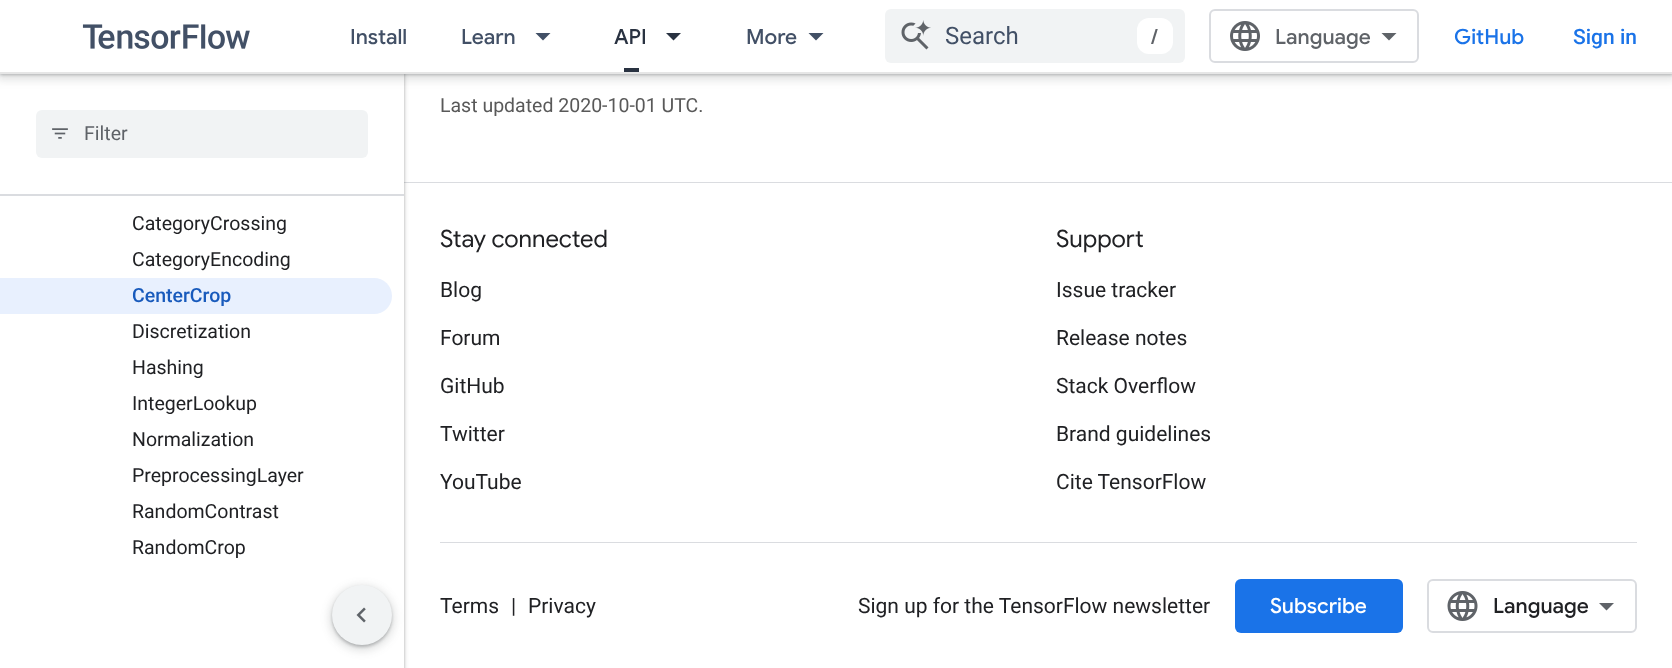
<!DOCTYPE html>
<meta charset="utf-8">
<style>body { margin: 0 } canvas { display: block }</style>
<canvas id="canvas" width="1672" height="668"></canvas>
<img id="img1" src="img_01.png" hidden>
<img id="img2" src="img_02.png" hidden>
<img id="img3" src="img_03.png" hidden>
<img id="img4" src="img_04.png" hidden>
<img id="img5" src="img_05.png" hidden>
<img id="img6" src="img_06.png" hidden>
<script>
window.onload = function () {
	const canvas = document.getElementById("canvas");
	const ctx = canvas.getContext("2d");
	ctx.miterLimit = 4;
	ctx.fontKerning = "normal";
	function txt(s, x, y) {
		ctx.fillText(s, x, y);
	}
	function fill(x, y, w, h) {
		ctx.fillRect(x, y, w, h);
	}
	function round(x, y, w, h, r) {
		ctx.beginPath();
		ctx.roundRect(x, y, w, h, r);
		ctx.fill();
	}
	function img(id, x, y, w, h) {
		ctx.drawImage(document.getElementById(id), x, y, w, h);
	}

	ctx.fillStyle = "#FFFFFF";
	fill(0, 0, 1672, 668);
	ctx.fillStyle = "#DADCE0";
	fill(404, 182, 1268, 1);
	ctx.fillStyle = "rgba(60, 64, 67, 0.15)";
	ctx.filter = "blur(2px)";
	ctx.beginPath();
	ctx.rect(-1, 0, 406, 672);
	ctx.fill();
	ctx.filter = "none";
	ctx.fillStyle = "rgba(60, 64, 67, 0.3)";
	ctx.filter = "blur(1.5px)";
	ctx.beginPath();
	ctx.rect(0, 2, 404, 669);
	ctx.fill();
	ctx.filter = "none";
	ctx.fillStyle = "#FFFFFF";
	fill(0, 196, 404, 472);
	fill(0, 74, 404, 120);
	ctx.fillStyle = "rgba(60, 64, 67, 0.15)";
	ctx.filter = "blur(4.5px)";
	ctx.beginPath();
	ctx.rect(-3, -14, 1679, 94);
	ctx.fill();
	ctx.filter = "none";
	ctx.fillStyle = "rgba(60, 64, 67, 0.3)";
	ctx.filter = "blur(1.5px)";
	ctx.beginPath();
	ctx.rect(0, -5, 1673, 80);
	ctx.fill();
	ctx.filter = "none";
	ctx.fillStyle = "#FFFFFF";
	fill(0, 0, 1672, 72);
	ctx.fillStyle = "#E6E6E6";
	fill(0, 72, 1672, 2);
	img("img1", 82, 24, 168, 25);
	ctx.fillStyle = "#425066";
	ctx.beginPath();
	ctx.moveTo(535.5, 33);
	ctx.lineTo(550.5, 33);
	ctx.lineTo(543, 40.5);
	ctx.closePath();
	ctx.fill();
	ctx.fillStyle = "#293241";
	fill(624, 68, 15, 4);
	ctx.beginPath();
	ctx.moveTo(666, 33);
	ctx.lineTo(681, 33);
	ctx.lineTo(673.5, 40.5);
	ctx.closePath();
	ctx.fill();
	ctx.fillStyle = "#425066";
	ctx.beginPath();
	ctx.moveTo(808.5, 33);
	ctx.lineTo(823.5, 33);
	ctx.lineTo(816, 40.5);
	ctx.closePath();
	ctx.fill();
	ctx.fillStyle = "#F1F3F4";
	round(885, 9, 300, 54, 6);
	img("img2", 901, 20, 30, 30);
	ctx.fillStyle = "#FFFFFF";
	round(1137, 18, 36, 36, 12);
	ctx.beginPath();
	ctx.roundRect(1210, 10, 208, 52, 5);
	ctx.strokeStyle = "#DADCE0";
	ctx.lineWidth = 2;
	ctx.stroke();
	img("img3", 1230, 21, 30, 30);
	ctx.fillStyle = "#5F6368";
	ctx.beginPath();
	ctx.moveTo(1389, 40.5);
	ctx.lineTo(1381.5, 33);
	ctx.lineTo(1396.5, 33);
	ctx.closePath();
	ctx.fill();
	ctx.fillStyle = "#DADCE0";
	fill(0, 194, 404, 2);
	ctx.fillStyle = "#F1F3F4";
	round(36, 110, 332, 48, 6);
	img("img4", 52, 128, 16, 11);
	ctx.fillStyle = "#E8F0FE";
	ctx.beginPath();
	ctx.roundRect(0, 278, 392, 36, [0, 18, 18, 0]);
	ctx.fill();
	ctx.fillStyle = "#DADCE0";
	fill(440, 542, 1197, 1);
	ctx.fillStyle = "#1A73E8";
	round(1235, 579, 168, 54, 6);
	ctx.beginPath();
	ctx.roundRect(1428, 580, 208, 52, 5);
	ctx.stroke();
	img("img5", 1447, 591, 31, 30);
	ctx.fillStyle = "#5F6368";
	ctx.beginPath();
	ctx.moveTo(1606.5, 610.5);
	ctx.lineTo(1599, 603);
	ctx.lineTo(1614, 603);
	ctx.closePath();
	ctx.fill();
	ctx.fillStyle = "rgba(60, 64, 67, 0.15)";
	ctx.filter = "blur(4.5px)";
	ctx.beginPath();
	ctx.roundRect(329, 585, 66, 66, 33);
	ctx.fill();
	ctx.filter = "none";
	ctx.fillStyle = "rgba(60, 64, 67, 0.3)";
	ctx.filter = "blur(1.5px)";
	ctx.beginPath();
	ctx.roundRect(332, 587, 60, 60, 30);
	ctx.fill();
	ctx.filter = "none";
	ctx.fillStyle = "#F1F3F4";
	ctx.beginPath();
	ctx.arc(362, 615, 30, 0, Math.PI * 2);
	ctx.fill();
	img("img6", 356, 607, 10, 16);
	ctx.font = "500 21px Google Sans";
	ctx.fillStyle = "#425066";
	txt("Install", 350, 44);
	txt("Learn", 461, 44);
	ctx.fillStyle = "#293241";
	txt("API", 614, 44);
	ctx.fillStyle = "#425066";
	txt("More", 746, 44);
	ctx.font = "24px Roboto";
	txt("Search", 945, 44);
	ctx.font = "500 21px Google Sans";
	ctx.fillStyle = "#5F6368";
	txt("/", 1151, 44);
	txt("Language", 1275, 44);
	ctx.fillStyle = "#1A73E8";
	txt("GitHub", 1454, 44);
	ctx.font = "500 21px Roboto";
	txt("Sign in", 1573, 44);
	ctx.font = "19.5px Roboto";
	ctx.fillStyle = "#5F6368";
	txt("Filter", 84, 140);
	ctx.fillStyle = "#202124";
	txt("CategoryCrossing", 132, 230);
	txt("CategoryEncoding", 132, 266);
	ctx.font = "500 19.5px Roboto";
	ctx.fillStyle = "#185ABC";
	txt("CenterCrop", 132, 302);
	ctx.font = "19.5px Roboto";
	ctx.fillStyle = "#202124";
	txt("Discretization", 132, 338);
	txt("Hashing", 132, 374);
	txt("IntegerLookup", 132, 410);
	txt("Normalization", 132, 446);
	txt("PreprocessingLayer", 132, 482);
	txt("RandomContrast", 132, 518);
	txt("RandomCrop", 132, 554);
	ctx.fillStyle = "#595959";
	txt("Last updated 2020-10-01 UTC.", 440, 112);
	ctx.font = "24px Google Sans";
	ctx.fillStyle = "#202124";
	txt("Stay connected", 440, 247);
	ctx.font = "21px Roboto";
	txt("Blog", 440, 297);
	txt("Forum", 440, 345);
	txt("GitHub", 440, 393);
	txt("Twitter", 440, 441);
	txt("YouTube", 440, 489);
	ctx.font = "24px Google Sans";
	txt("Support", 1056, 247);
	ctx.font = "21px Roboto";
	txt("Issue tracker", 1056, 297);
	txt("Release notes", 1056, 345);
	txt("Stack Overflow", 1056, 393);
	txt("Brand guidelines", 1056, 441);
	txt("Cite TensorFlow", 1056, 489);
	txt("Terms", 440, 613);
	txt("|", 511, 613);
	txt("Privacy", 528, 613);
	txt("Sign up for the TensorFlow newsletter", 858, 613);
	ctx.font = "500 21px Google Sans";
	ctx.fillStyle = "#FFFFFF";
	txt("Subscribe", 1270, 613);
	ctx.fillStyle = "#202124";
	txt("Language", 1493, 613);
};
</script>
